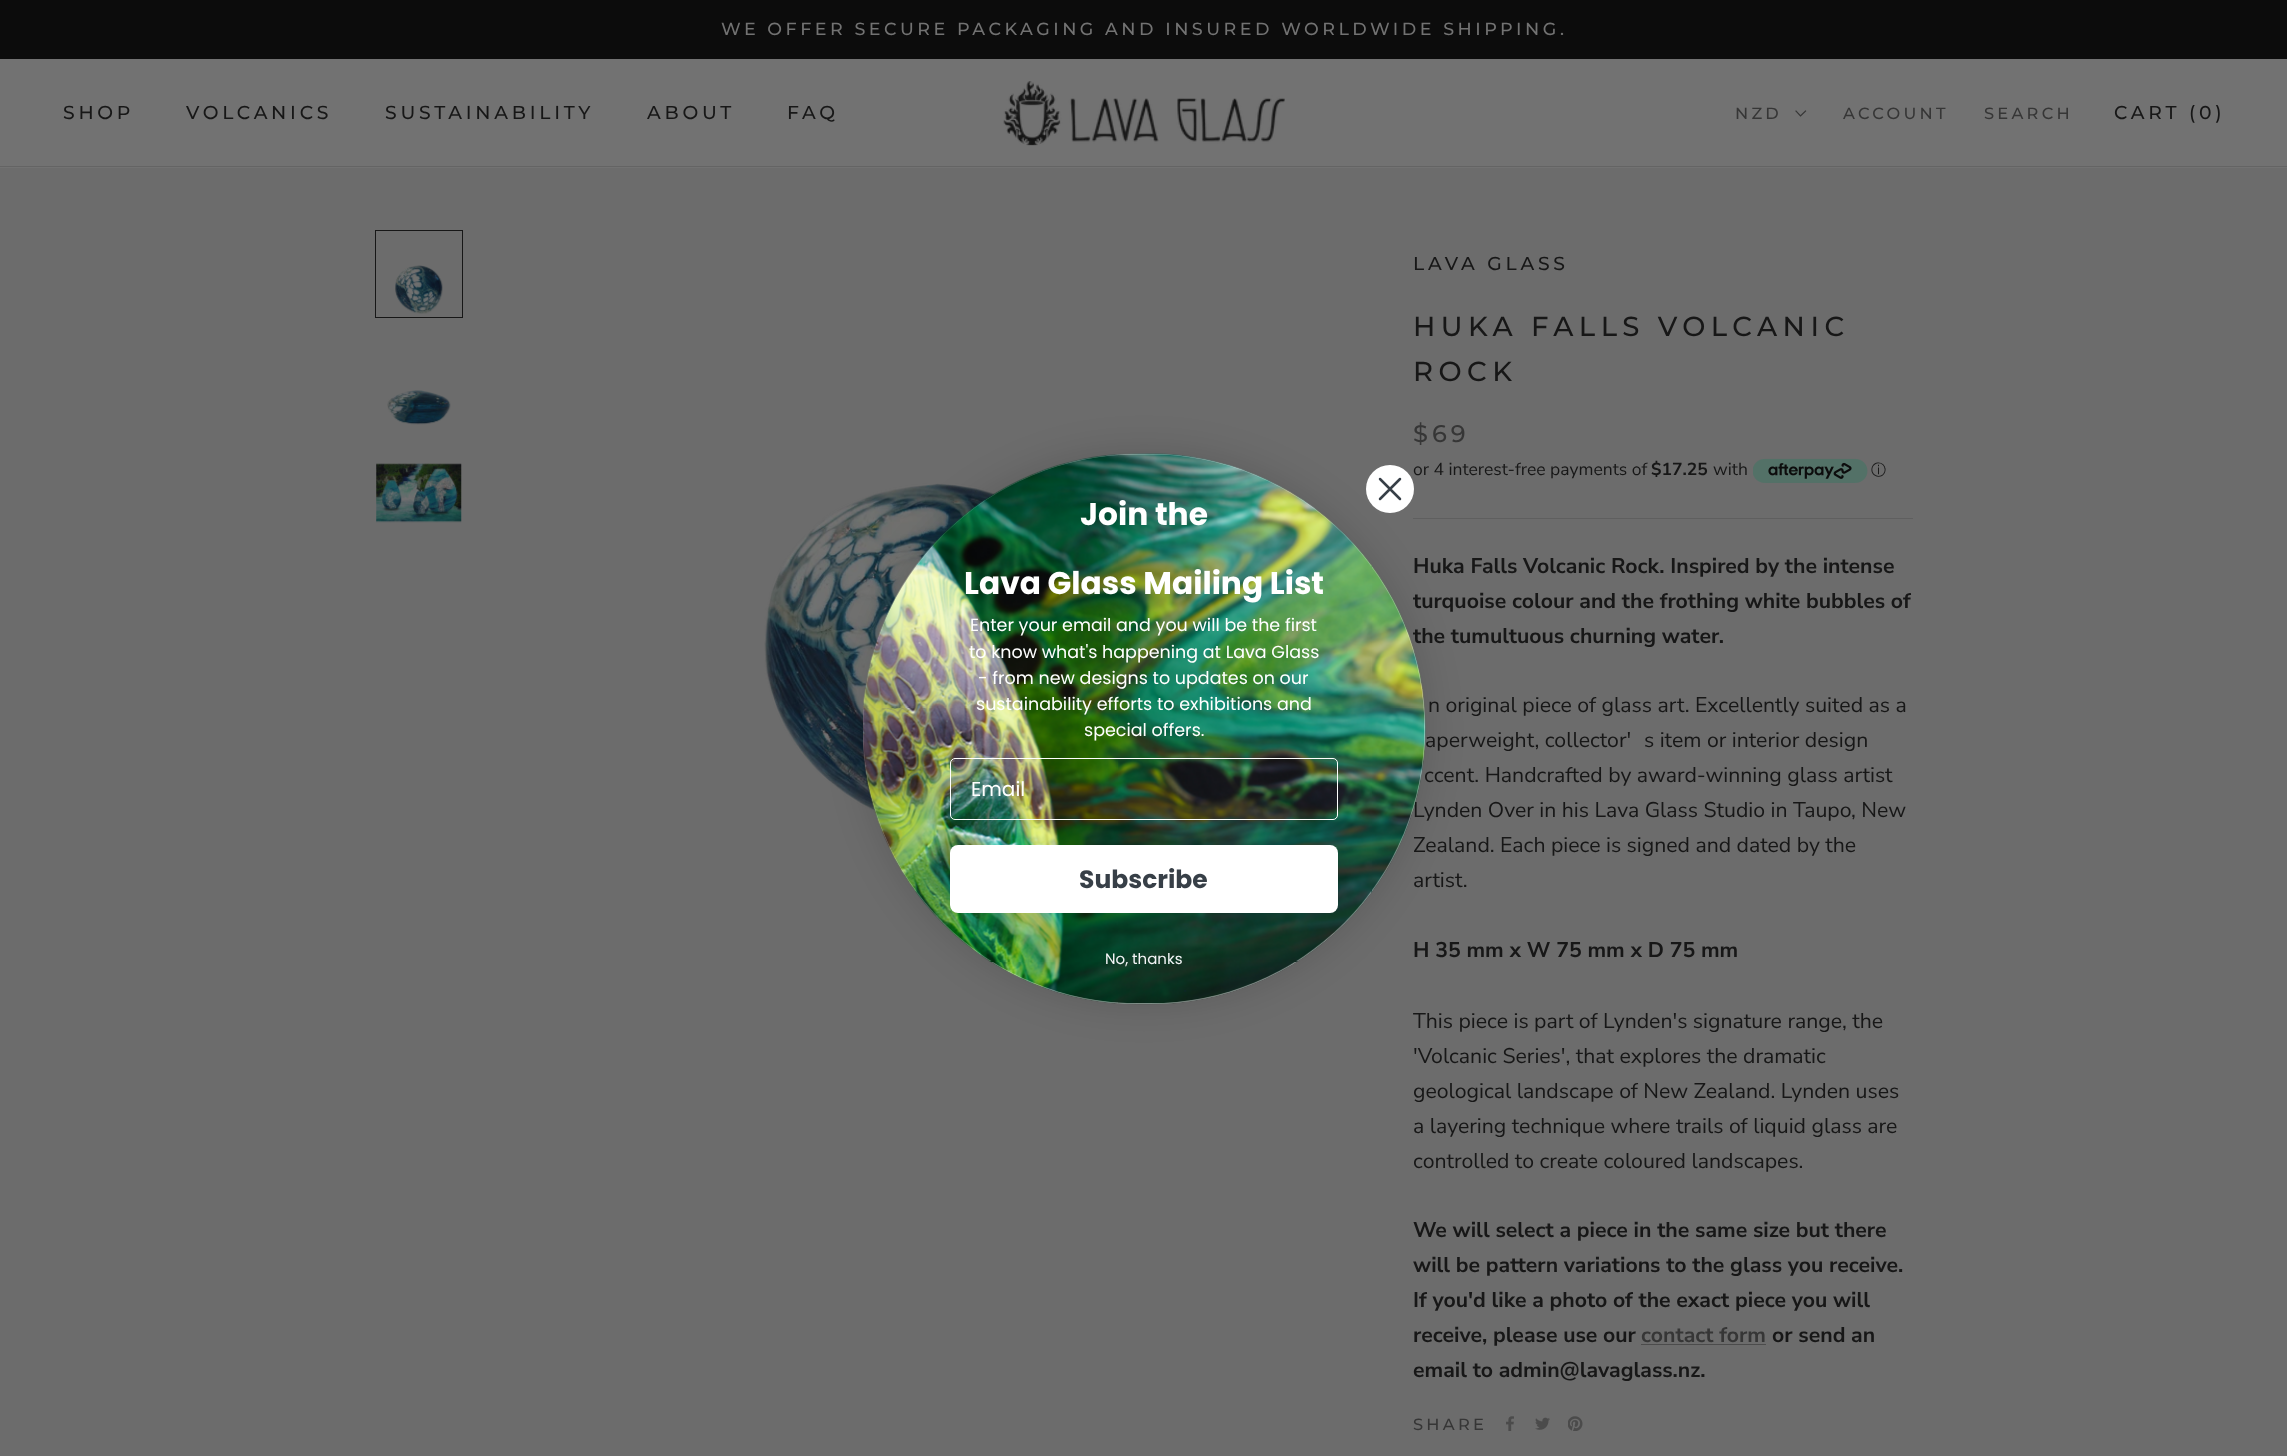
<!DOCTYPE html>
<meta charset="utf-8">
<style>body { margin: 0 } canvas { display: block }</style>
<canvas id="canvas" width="2287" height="1456"></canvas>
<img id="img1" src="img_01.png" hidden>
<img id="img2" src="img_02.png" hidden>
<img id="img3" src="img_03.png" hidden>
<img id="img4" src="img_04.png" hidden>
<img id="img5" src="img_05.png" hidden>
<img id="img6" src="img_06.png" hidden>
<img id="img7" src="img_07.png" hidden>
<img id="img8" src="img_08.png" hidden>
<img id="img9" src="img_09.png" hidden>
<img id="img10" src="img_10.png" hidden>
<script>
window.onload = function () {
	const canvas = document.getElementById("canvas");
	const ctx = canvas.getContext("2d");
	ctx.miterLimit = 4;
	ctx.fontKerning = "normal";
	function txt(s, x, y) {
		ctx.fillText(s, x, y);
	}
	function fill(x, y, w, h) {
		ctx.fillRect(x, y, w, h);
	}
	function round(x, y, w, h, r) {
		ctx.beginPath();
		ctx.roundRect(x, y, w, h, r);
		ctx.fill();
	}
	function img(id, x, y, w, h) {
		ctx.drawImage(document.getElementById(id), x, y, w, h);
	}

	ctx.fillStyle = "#6C6C6C";
	fill(0, 0, 2287, 1456);
	ctx.fillStyle = "#0C0C0C";
	fill(0, 0, 2287, 59);
	ctx.fillStyle = "#727272";
	fill(0, 59, 2287, 109);
	ctx.fillStyle = "#646464";
	fill(0, 166, 2287, 1);
	img("img1", 1003, 81, 282, 65);
	ctx.beginPath();
	ctx.moveTo(1805.5, 111);
	ctx.lineTo(1800.5, 116);
	ctx.lineTo(1796, 111);
	ctx.strokeStyle = "#363636";
	ctx.lineWidth = 1.2;
	ctx.lineCap = "square";
	ctx.stroke();
	ctx.strokeStyle = "#171717";
	ctx.lineWidth = 1;
	ctx.strokeRect(375.5, 230.5, 87, 87);
	img("img2", 395, 265, 48, 49);
	img("img3", 387, 390, 64, 35);
	img("img4", 376, 463, 86, 60);
	img("img5", 764, 483, 232, 330);
	img("img6", 1753, 458, 115, 25);
	ctx.fillStyle = "#5F5F5F";
	fill(1413, 518, 500, 1);
	ctx.fillStyle = "#4C4C4C";
	fill(1641, 1344, 125, 1);
	img("img7", 1506, 1416, 8, 15);
	img("img8", 1535, 1417, 15, 13);
	img("img9", 1568, 1416, 15, 15);
	ctx.fillStyle = "rgba(0, 0, 0, 0.15)";
	ctx.filter = "blur(19px)";
	ctx.beginPath();
	ctx.roundRect(863, 454, 562, 550, 275);
	ctx.fill();
	ctx.filter = "none";
	ctx.letterSpacing = "3.5px";
	ctx.font = "500 17.5px Montserrat";
	ctx.fillStyle = "#727272";
	txt("WE OFFER SECURE PACKAGING AND INSURED WORLDWIDE SHIPPING.", 721, 35);
	ctx.letterSpacing = "3.75px";
	ctx.font = "500 18.75px Montserrat";
	ctx.fillStyle = "#171717";
	txt("SHOP", 63, 119);
	txt("VOLCANICS", 186, 119);
	txt("SUSTAINABILITY", 385, 119);
	txt("ABOUT", 647, 119);
	txt("FAQ", 787, 119);
	ctx.letterSpacing = "3.25px";
	ctx.font = "500 16.25px Montserrat";
	ctx.fillStyle = "#363636";
	txt("NZD", 1735, 119);
	txt("ACCOUNT", 1843, 119);
	txt("SEARCH", 1984, 119);
	ctx.letterSpacing = "3.75px";
	ctx.font = "500 18.75px Montserrat";
	ctx.fillStyle = "#171717";
	txt("CART (0)", 2114, 119);
	txt("LAVA GLASS", 1413, 270);
	ctx.letterSpacing = "5.5px";
	ctx.font = "500 27.5px Montserrat";
	txt("HUKA FALLS VOLCANIC", 1413, 336);
	txt("ROCK", 1413, 381);
	ctx.letterSpacing = "4px";
	ctx.font = "500 24px Montserrat";
	ctx.fillStyle = "#363636";
	txt("$69", 1413, 442);
	ctx.letterSpacing = "0px";
	ctx.font = "200 17.5px Nunito Sans";
	ctx.fillStyle = "#171717";
	txt("or 4 interest-free payments of", 1413, 475);
	ctx.font = "bold 17.5px Nunito Sans";
	txt("$17.25", 1651, 475);
	ctx.font = "200 17.5px Nunito Sans";
	txt("with", 1713, 475);
	ctx.font = "500 15px WenQuanYi Zen Hei";
	txt("ⓘ", 1871, 475);
	ctx.font = "bold 21.25px Nunito Sans";
	txt("Huka Falls Volcanic Rock. Inspired by the intense", 1413, 573);
	txt("turquoise colour and the frothing white bubbles of", 1413, 608);
	txt("the tumultuous churning water.", 1413, 643);
	ctx.font = "200 21.25px Nunito Sans";
	txt("n original piece of glass art. Excellently suited as a", 1428, 712);
	txt("aperweight, collector'", 1425, 747);
	txt("s item or interior design", 1644, 747);
	txt("ccent. Handcrafted by award-winning glass artist", 1424, 782);
	txt("Lynden Over in his Lava Glass Studio in Taupo, New", 1413, 817);
	txt("Zealand. Each piece is signed and dated by the", 1413, 852);
	txt("artist.", 1413, 887);
	ctx.font = "bold 21.25px Nunito Sans";
	txt("H 35 mm x W 75 mm x D 75 mm", 1413, 957);
	ctx.font = "200 21.25px Nunito Sans";
	txt("This piece is part of Lynden's signature range, the", 1413, 1028);
	txt("'Volcanic Series', that explores the dramatic", 1413, 1063);
	txt("geological landscape of New Zealand. Lynden uses", 1413, 1098);
	txt("a layering technique where trails of liquid glass are", 1413, 1133);
	txt("controlled to create coloured landscapes.", 1413, 1168);
	ctx.font = "bold 21.25px Nunito Sans";
	txt("We will select a piece in the same size but there", 1413, 1237);
	txt("will be pattern variations to the glass you receive.", 1413, 1272);
	txt("If you'd like a photo of the exact piece you will", 1413, 1307);
	txt("receive, please use our", 1413, 1342);
	ctx.fillStyle = "#363636";
	txt("contact form", 1641, 1342);
	ctx.fillStyle = "#171717";
	txt("or send an", 1772, 1342);
	txt("email to admin@lavaglass.nz.", 1413, 1377);
	ctx.letterSpacing = "3.25px";
	ctx.font = "500 16.25px Montserrat";
	ctx.fillStyle = "#363636";
	txt("SHARE", 1413, 1430);
	ctx.fillStyle = "#FFFFFF";
	round(863, 454, 562, 550, 275);
	img("img10", 863, 453, 563, 552);
	ctx.beginPath();
	ctx.arc(1390, 489, 24, 0, Math.PI * 2);
	ctx.fill();
	ctx.beginPath();
	ctx.moveTo(1380, 479);
	ctx.lineTo(1400, 499);
	ctx.moveTo(1380, 499);
	ctx.lineTo(1400, 479);
	ctx.closePath();
	ctx.strokeStyle = "#373F47";
	ctx.lineWidth = 2.5;
	ctx.lineCap = "round";
	ctx.lineJoin = "round";
	ctx.stroke();
	ctx.letterSpacing = "0px";
	ctx.font = "bold 31.25px Poppins";
	txt("Join the", 1080, 525);
	txt("Lava Glass Mailing List", 964, 594);
	ctx.font = "17.5px Poppins";
	txt("Enter your email and you will be the first", 970, 631);
	txt("to know what's happening at Lava Glass", 969, 658);
	txt("- from new designs to updates on our", 978, 684);
	txt("sustainability efforts to exhibitions and", 976, 710);
	txt("special offers.", 1084, 736);
	ctx.beginPath();
	ctx.roundRect(950.5, 758.5, 387, 61, 4.5);
	ctx.strokeStyle = "#FFFFFF";
	ctx.lineWidth = 1;
	ctx.lineJoin = "miter";
	ctx.stroke();
	ctx.font = "20px Poppins";
	txt("Email", 971, 796);
	round(950, 845, 388, 68, 8);
	ctx.font = "bold 25px Poppins";
	ctx.fillStyle = "#373F47";
	txt("Subscribe", 1079, 888);
	ctx.font = "15px Poppins";
	ctx.fillStyle = "#F3F5F6";
	txt("No, thanks", 1105, 964);
};
</script>
